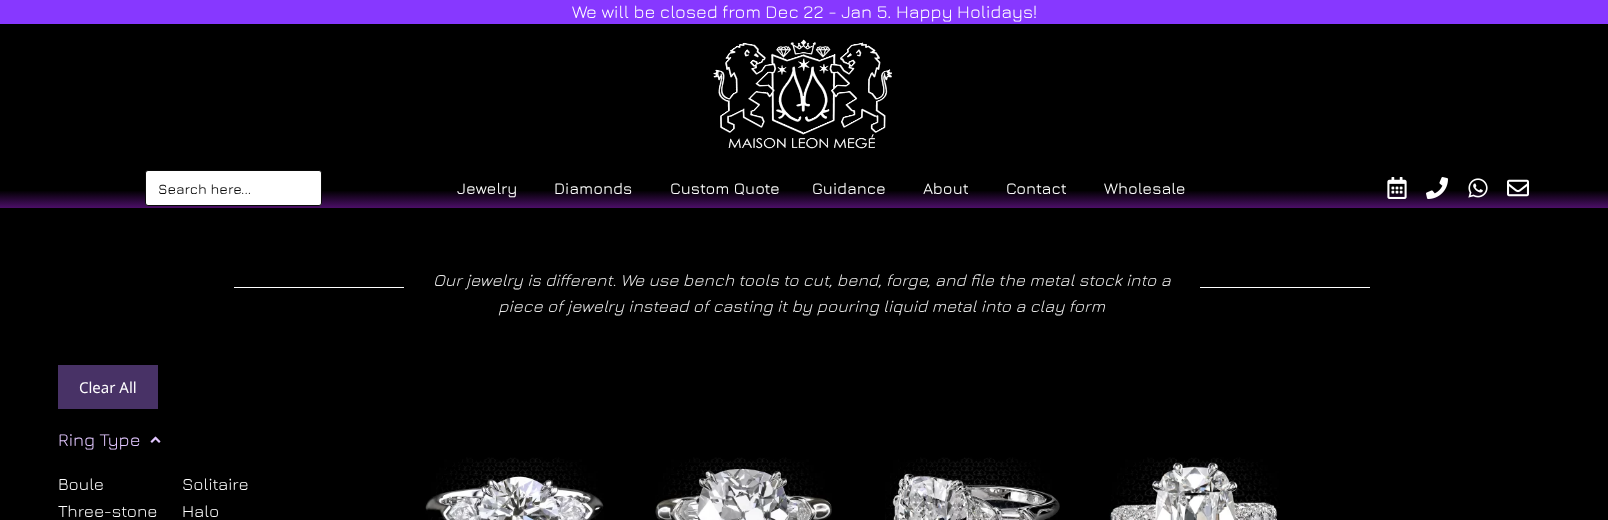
<!DOCTYPE html>
<meta charset="utf-8">
<style>body { margin: 0 } canvas { display: block }</style>
<canvas id="canvas" width="1608" height="520"></canvas>
<img id="img1" src="img_01.png" hidden>
<img id="img2" src="img_02.png" hidden>
<img id="img3" src="img_03.png" hidden>
<img id="img4" src="img_04.png" hidden>
<img id="img5" src="img_05.png" hidden>
<img id="img6" src="img_06.png" hidden>
<img id="img7" src="img_07.png" hidden>
<img id="img8" src="img_08.png" hidden>
<img id="img9" src="img_09.png" hidden>
<img id="img10" src="img_10.png" hidden>
<script>
window.onload = function () {
	const canvas = document.getElementById("canvas");
	const ctx = canvas.getContext("2d");
	ctx.miterLimit = 4;
	ctx.fontKerning = "normal";
	function txt(s, x, y) {
		ctx.fillText(s, x, y);
	}
	function fill(x, y, w, h) {
		ctx.fillRect(x, y, w, h);
	}
	function img(id, x, y, w, h) {
		ctx.drawImage(document.getElementById(id), x, y, w, h);
	}
	let gradient;

	ctx.fillStyle = "#000000";
	fill(0, 0, 1608, 520);
	ctx.fillStyle = "#8738FF";
	fill(0, 0, 1608, 24);
	img("img1", 713, 39, 179, 110);
	gradient = ctx.createLinearGradient(804, 208, 804, 168);
	gradient.addColorStop(0, "#4C0F68");
	gradient.addColorStop(0.44, "#000000");
	ctx.fillStyle = gradient;
	fill(0, 191, 1608, 17);
	ctx.fillStyle = "#FFFFFF";
	ctx.beginPath();
	ctx.roundRect(145.5, 170.5, 176, 35, 2.5);
	ctx.fill();
	ctx.strokeStyle = "#0A0A0A";
	ctx.stroke();
	img("img2", 1387, 177, 20, 22);
	img("img3", 1426, 177, 22, 22);
	img("img4", 1468, 178, 20, 20);
	img("img5", 1507, 179, 22, 18);
	fill(234, 287, 170, 1);
	fill(1200, 287, 170, 1);
	ctx.fillStyle = "#483266";
	fill(58, 365, 100, 44);
	img("img6", 150, 436, 11, 7);
	img("img7", 425, 457, 179, 63);
	img("img8", 655, 457, 177, 63);
	img("img9", 885, 457, 175, 63);
	img("img10", 1109, 457, 171, 63);
	ctx.font = "300 18px Jura";
	ctx.fillStyle = "#FFFFFF";
	txt("We will be closed from Dec 22 - Jan 5. Happy Holidays!", 572, 18);
	ctx.font = "500 14px Jura";
	ctx.fillStyle = "#0A0A0A";
	txt("Search here...", 158, 194);
	ctx.font = "500 16px Jura";
	ctx.fillStyle = "#FFFFFF";
	txt("Jewelry", 457, 194);
	txt("Diamonds", 554, 194);
	txt("Custom Quote", 670, 194);
	txt("Guidance", 812, 194);
	txt("About", 923, 194);
	txt("Contact", 1006, 194);
	txt("Wholesale", 1104, 194);
	ctx.font = "italic 300 17px Jura";
	ctx.fillStyle = "#E9E9E9";
	txt("Our jewelry is different. We use bench tools to cut, bend, forge, and file the metal stock into a", 433, 286);
	txt("piece of jewelry instead of casting it by pouring liquid metal into a clay form", 498, 312);
	ctx.font = "15px Noto Sans";
	ctx.fillStyle = "#FFFFFF";
	txt("Clear All", 79, 393);
	ctx.font = "300 18px Jura";
	ctx.fillStyle = "#E2C7FF";
	txt("Ring Type", 58, 446);
	ctx.font = "300 17px Jura";
	ctx.fillStyle = "#FFFFFF";
	txt("Boule", 58, 490);
	txt("Solitaire", 182, 490);
	txt("Three-stone", 58, 517);
	txt("Halo", 182, 517);
};
</script>
